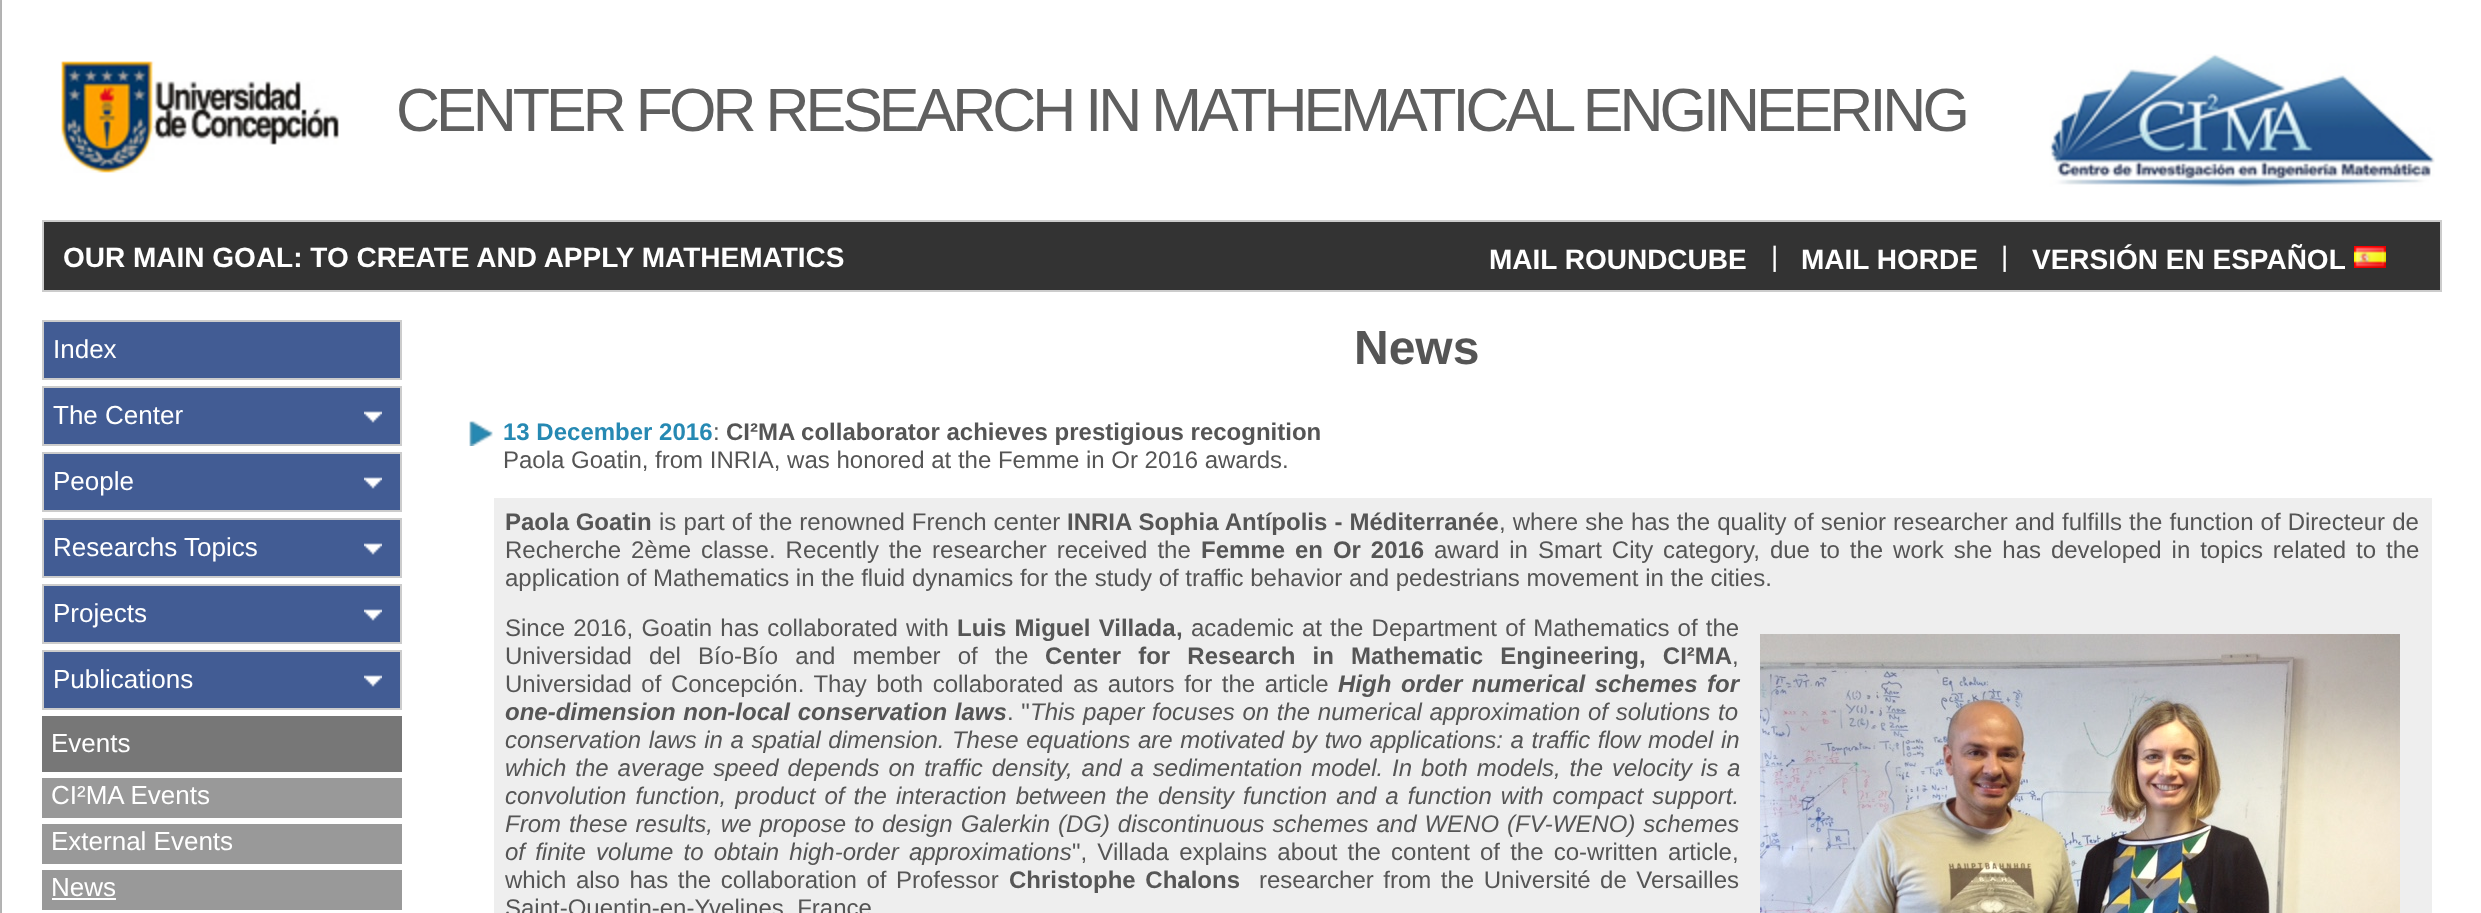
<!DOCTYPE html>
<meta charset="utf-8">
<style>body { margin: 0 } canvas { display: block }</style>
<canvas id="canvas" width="2481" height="913"></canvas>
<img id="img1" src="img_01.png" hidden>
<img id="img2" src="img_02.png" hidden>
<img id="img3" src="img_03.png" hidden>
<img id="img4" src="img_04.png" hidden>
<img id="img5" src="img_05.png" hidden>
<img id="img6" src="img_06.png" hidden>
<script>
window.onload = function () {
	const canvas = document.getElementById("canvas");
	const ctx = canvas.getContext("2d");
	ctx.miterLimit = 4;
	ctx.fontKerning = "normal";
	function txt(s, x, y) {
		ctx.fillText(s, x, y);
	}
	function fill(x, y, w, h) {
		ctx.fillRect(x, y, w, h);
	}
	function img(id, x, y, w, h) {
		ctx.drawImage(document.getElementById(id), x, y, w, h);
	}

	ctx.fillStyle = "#FFFFFF";
	fill(0, 0, 2481, 913);
	ctx.fillStyle = "#AEAEAE";
	ctx.filter = "blur(3px)";
	ctx.beginPath();
	ctx.rect(-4, -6, 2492, 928);
	ctx.fill();
	ctx.filter = "none";
	ctx.fillStyle = "#FFFFFF";
	fill(2, 0, 2479, 913);
	img("img1", 60, 61, 279, 112);
	img("img2", 2049, 54, 386, 133);
	ctx.fillStyle = "#333333";
	ctx.beginPath();
	ctx.rect(43, 221, 2398, 70);
	ctx.fill();
	ctx.strokeStyle = "#CCCCCC";
	ctx.lineWidth = 2;
	ctx.stroke();
	img("img3", 2354, 246, 32, 22);
	ctx.fillStyle = "#425C94";
	ctx.beginPath();
	ctx.rect(43, 321, 358, 58);
	ctx.fill();
	ctx.stroke();
	fill(44, 388, 356, 56);
	img("img4", 364, 411, 18, 12);
	ctx.strokeRect(43, 387, 358, 58);
	fill(44, 454, 356, 56);
	img("img4", 364, 477, 18, 12);
	ctx.strokeRect(43, 453, 358, 58);
	fill(44, 520, 356, 56);
	img("img4", 364, 543, 18, 12);
	ctx.strokeRect(43, 519, 358, 58);
	fill(44, 586, 356, 56);
	img("img4", 364, 609, 18, 12);
	ctx.strokeRect(43, 585, 358, 58);
	fill(44, 652, 356, 56);
	img("img4", 364, 675, 18, 12);
	ctx.strokeRect(43, 651, 358, 58);
	ctx.fillStyle = "#777777";
	fill(42, 716, 360, 56);
	ctx.fillStyle = "#999999";
	fill(42, 778, 360, 40);
	fill(42, 824, 360, 40);
	fill(42, 870, 360, 40);
	ctx.fillStyle = "#FFFFFF";
	fill(52, 898, 64, 2);
	img("img5", 469, 420, 24, 26);
	ctx.fillStyle = "#EEEEEE";
	fill(494, 498, 1938, 415);
	img("img6", 1760, 634, 640, 279);
	ctx.letterSpacing = "-4px";
	ctx.font = "61px Liberation Sans";
	ctx.fillStyle = "#5F5F5F";
	txt("CENTER FOR RESEARCH IN MATHEMATICAL ENGINEERING", 396, 131);
	ctx.letterSpacing = "0px";
	ctx.font = "bold 28px Liberation Sans";
	ctx.fillStyle = "#FFFFFF";
	txt("OUR MAIN GOAL: TO CREATE AND APPLY MATHEMATICS", 63, 267);
	txt("MAIL ROUNDCUBE", 1489, 269);
	ctx.font = "28px Liberation Sans";
	txt("|", 1771, 266);
	ctx.font = "bold 28px Liberation Sans";
	txt("MAIL HORDE", 1801, 269);
	ctx.font = "28px Liberation Sans";
	txt("|", 2001, 266);
	ctx.font = "bold 28px Liberation Sans";
	txt("VERSIÓN EN ESPAÑOL", 2032, 269);
	ctx.font = "26px Liberation Sans";
	txt("Index", 53, 358);
	txt("The Center", 53, 424);
	txt("People", 53, 490);
	txt("Researchs Topics", 53, 556);
	txt("Projects", 53, 622);
	txt("Publications", 53, 688);
	txt("Events", 51, 752);
	txt("CI²MA Events", 51, 804);
	txt("External Events", 51, 850);
	txt("News", 51, 896);
	ctx.font = "bold 48px Liberation Sans";
	ctx.fillStyle = "#555555";
	txt("News", 1354, 364);
	ctx.font = "bold 24px Liberation Sans";
	ctx.fillStyle = "#2689B3";
	txt("13 December 2016", 503, 440);
	ctx.font = "24px Liberation Sans";
	ctx.fillStyle = "#555555";
	txt(":", 713, 440);
	ctx.font = "bold 24px Liberation Sans";
	txt("CI²MA collaborator achieves prestigious recognition", 726, 440);
	ctx.font = "24px Liberation Sans";
	txt("Paola Goatin, from INRIA, was honored at the Femme in Or 2016 awards.", 503, 468);
	ctx.font = "bold 24px Liberation Sans";
	txt("Paola Goatin", 505, 530);
	ctx.wordSpacing = "0.4px";
	ctx.font = "24px Liberation Sans";
	txt("is part of the renowned French center", 659, 530);
	ctx.font = "bold 24px Liberation Sans";
	txt("INRIA Sophia Antípolis - Méditerranée", 1067, 530);
	ctx.font = "24px Liberation Sans";
	txt(", where she has the quality of senior researcher and fulfills the function of Directeur de", 1499, 530);
	ctx.wordSpacing = "3.25px";
	txt("Recherche 2ème classe. Recently the researcher received the", 505, 558);
	ctx.font = "bold 24px Liberation Sans";
	txt("Femme en Or 2016", 1201, 558);
	ctx.font = "24px Liberation Sans";
	txt("award in Smart City category, due to the work she has developed in topics related to the", 1434, 558);
	ctx.wordSpacing = "0px";
	txt("application of Mathematics in the fluid dynamics for the study of traffic behavior and pedestrians movement in the cities.", 505, 586);
	ctx.wordSpacing = "1.5px";
	txt("Since 2016, Goatin has collaborated with", 505, 636);
	ctx.font = "bold 24px Liberation Sans";
	txt("Luis Miguel Villada", 957, 636);
	ctx.wordSpacing = "0px";
	txt(",", 1176, 636);
	ctx.wordSpacing = "1.5px";
	ctx.font = "24px Liberation Sans";
	txt("academic at the Department of Mathematics of the", 1191, 636);
	ctx.wordSpacing = "10.5px";
	txt("Universidad del Bío-Bío and member of the", 505, 664);
	ctx.font = "bold 24px Liberation Sans";
	txt("Center for Research in Mathematic Engineering, CI²MA", 1045, 664);
	ctx.wordSpacing = "0px";
	ctx.font = "24px Liberation Sans";
	txt(",", 1732, 664);
	ctx.wordSpacing = "2.9px";
	txt("Universidad of Concepción. Thay both collaborated as autors for the article", 505, 692);
	ctx.font = "italic bold 24px Liberation Sans";
	txt("High order numerical schemes for", 1338, 692);
	ctx.wordSpacing = "1px";
	txt("one-dimension non-local conservation laws", 505, 720);
	ctx.font = "24px Liberation Sans";
	txt(". \"", 1007, 720);
	ctx.font = "italic 24px Liberation Sans";
	txt("This paper focuses on the numerical approximation of solutions to", 1030, 720);
	ctx.wordSpacing = "0.9px";
	txt("conservation laws in a spatial dimension. These equations are motivated by two applications: a traffic flow model in", 505, 748);
	ctx.wordSpacing = "2.25px";
	txt("which the average speed depends on traffic density, and a sedimentation model. In both models, the velocity is a", 505, 776);
	ctx.wordSpacing = "2.4px";
	txt("convolution function, product of the interaction between the density function and a function with compact support.", 505, 804);
	ctx.wordSpacing = "1.25px";
	txt("From these results, we propose to design Galerkin (DG) discontinuous schemes and WENO (FV-WENO) schemes", 505, 832);
	ctx.wordSpacing = "3.5px";
	txt("of finite volume to obtain high-order approximations", 505, 860);
	ctx.font = "24px Liberation Sans";
	txt("\", Villada explains about the content of the co-written article,", 1072, 860);
	ctx.wordSpacing = "2.9px";
	txt("which also has the collaboration of Professor", 505, 888);
	ctx.wordSpacing = "3px";
	ctx.font = "bold 24px Liberation Sans";
	txt("Christophe Chalons", 1009, 888);
	ctx.wordSpacing = "2.9px";
	ctx.font = "24px Liberation Sans";
	txt("researcher from the Université de Versailles", 1259, 888);
	ctx.wordSpacing = "0px";
	txt("Saint-Quentin-en-Yvelines, France", 505, 916);
};
</script>
